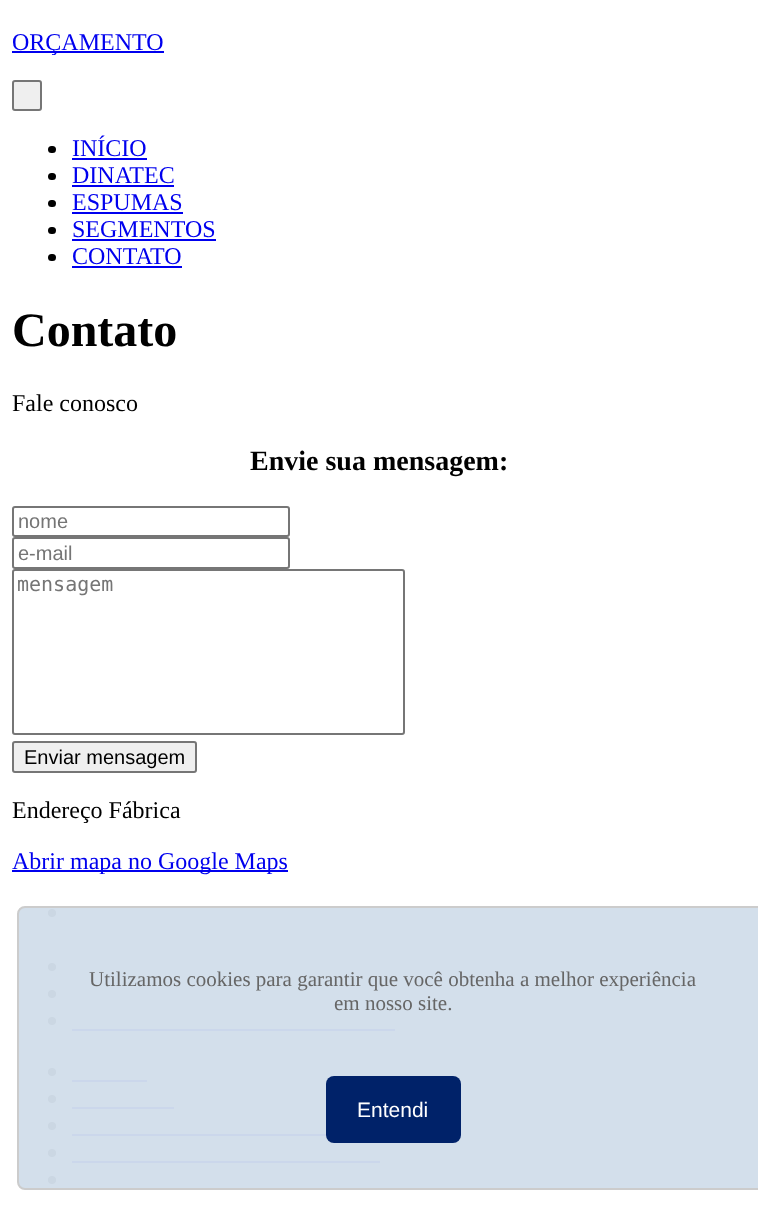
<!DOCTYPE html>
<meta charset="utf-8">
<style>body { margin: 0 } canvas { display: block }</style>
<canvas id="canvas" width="758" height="1209"></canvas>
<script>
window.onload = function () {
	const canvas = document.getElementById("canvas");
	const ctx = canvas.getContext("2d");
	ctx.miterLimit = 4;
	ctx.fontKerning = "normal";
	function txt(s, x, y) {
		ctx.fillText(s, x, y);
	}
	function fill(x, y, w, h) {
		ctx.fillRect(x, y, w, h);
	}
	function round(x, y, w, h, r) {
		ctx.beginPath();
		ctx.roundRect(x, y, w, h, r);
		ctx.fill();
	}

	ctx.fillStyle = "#FFFFFF";
	fill(0, 0, 758, 1209);
	ctx.fillStyle = "#0000EE";
	fill(12, 51, 152, 2);
	ctx.fillStyle = "#EFEFEF";
	ctx.beginPath();
	ctx.roundRect(13, 81, 28, 29, 2);
	ctx.fill();
	ctx.strokeStyle = "#767676";
	ctx.lineWidth = 2;
	ctx.stroke();
	ctx.fillStyle = "#000000";
	round(48, 146, 8, 7, 3.5);
	ctx.fillStyle = "#0000EE";
	fill(72, 158, 75, 2);
	ctx.fillStyle = "#000000";
	round(48, 173, 8, 7, 3.5);
	ctx.fillStyle = "#0000EE";
	fill(72, 185, 102, 2);
	ctx.fillStyle = "#000000";
	round(48, 200, 8, 7, 3.5);
	ctx.fillStyle = "#0000EE";
	fill(72, 212, 111, 2);
	ctx.fillStyle = "#000000";
	round(48, 227, 8, 7, 3.5);
	ctx.fillStyle = "#0000EE";
	fill(72, 239, 144, 2);
	ctx.fillStyle = "#000000";
	round(48, 254, 8, 7, 3.5);
	ctx.fillStyle = "#0000EE";
	fill(72, 266, 110, 2);
	ctx.beginPath();
	ctx.roundRect(13, 507, 276, 29, 2);
	ctx.stroke();
	ctx.beginPath();
	ctx.roundRect(13, 538, 276, 30, 2);
	ctx.stroke();
	ctx.beginPath();
	ctx.roundRect(13, 570, 391, 164, 2);
	ctx.stroke();
	ctx.fillStyle = "#EFEFEF";
	ctx.beginPath();
	ctx.roundRect(13, 742, 183, 30, 2);
	ctx.fill();
	ctx.stroke();
	ctx.fillStyle = "#0000EE";
	fill(12, 870, 276, 2);
	ctx.fillStyle = "#000000";
	ctx.beginPath();
	ctx.arc(52, 913, 4, 0, Math.PI * 2);
	ctx.fill();
	ctx.beginPath();
	ctx.arc(52, 967, 4, 0, Math.PI * 2);
	ctx.fill();
	ctx.beginPath();
	ctx.arc(52, 994, 4, 0, Math.PI * 2);
	ctx.fill();
	ctx.beginPath();
	ctx.arc(52, 1021, 4, 0, Math.PI * 2);
	ctx.fill();
	ctx.fillStyle = "#0000EE";
	fill(72, 1029, 323, 2);
	ctx.fillStyle = "#000000";
	ctx.beginPath();
	ctx.arc(52, 1072, 4, 0, Math.PI * 2);
	ctx.fill();
	ctx.fillStyle = "#0000EE";
	fill(72, 1080, 75, 2);
	ctx.fillStyle = "#000000";
	ctx.beginPath();
	ctx.arc(52, 1099, 4, 0, Math.PI * 2);
	ctx.fill();
	ctx.fillStyle = "#0000EE";
	fill(72, 1107, 102, 2);
	ctx.fillStyle = "#000000";
	ctx.beginPath();
	ctx.arc(52, 1126, 4, 0, Math.PI * 2);
	ctx.fill();
	ctx.fillStyle = "#0000EE";
	fill(72, 1134, 255, 2);
	ctx.fillStyle = "#000000";
	ctx.beginPath();
	ctx.arc(52, 1153, 4, 0, Math.PI * 2);
	ctx.fill();
	ctx.fillStyle = "#0000EE";
	fill(72, 1161, 308, 2);
	ctx.fillStyle = "#000000";
	ctx.beginPath();
	ctx.arc(52, 1180, 4, 0, Math.PI * 2);
	ctx.fill();
	ctx.fillStyle = "rgba(210, 222, 234, 0.97)";
	ctx.beginPath();
	ctx.roundRect(18, 907, 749, 282, 7);
	ctx.fill();
	ctx.strokeStyle = "#CCCCCC";
	ctx.stroke();
	ctx.fillStyle = "#002269";
	round(326, 1076, 135, 67, 8);
	ctx.font = "24px Liberation Serif";
	ctx.fillStyle = "#0000EE";
	txt("ORÇAMENTO", 12, 50);
	txt("INÍCIO", 72, 156);
	txt("DINATEC", 72, 183);
	txt("ESPUMAS", 72, 210);
	txt("SEGMENTOS", 72, 237);
	txt("CONTATO", 72, 264);
	ctx.font = "bold 48px Liberation Serif";
	ctx.fillStyle = "#000000";
	txt("Contato", 12, 346);
	ctx.font = "24px Liberation Serif";
	txt("Fale conosco", 12, 411);
	ctx.font = "bold 28px Liberation Serif";
	txt("Envie sua mensagem:", 250, 470);
	ctx.font = "20px Liberation Sans";
	ctx.fillStyle = "#757575";
	txt("nome", 18, 528);
	txt("e-mail", 18, 560);
	ctx.font = "20px DejaVu Sans Mono";
	txt("mensagem", 17, 591);
	ctx.font = "20px Liberation Sans";
	ctx.fillStyle = "#000000";
	txt("Enviar mensagem", 24, 764);
	ctx.font = "24px Liberation Serif";
	txt("Endereço Fábrica", 12, 818);
	ctx.fillStyle = "#0000EE";
	txt("Abrir mapa no Google Maps", 12, 869);
	ctx.font = "21px Liberation Serif";
	ctx.fillStyle = "#666666";
	txt("Utilizamos cookies para garantir que você obtenha a melhor experiência", 89, 986);
	txt("em nosso site.", 334, 1010);
	ctx.font = "21px Liberation Sans";
	ctx.fillStyle = "#FFFFFF";
	txt("Entendi", 357, 1117);
};
</script>
